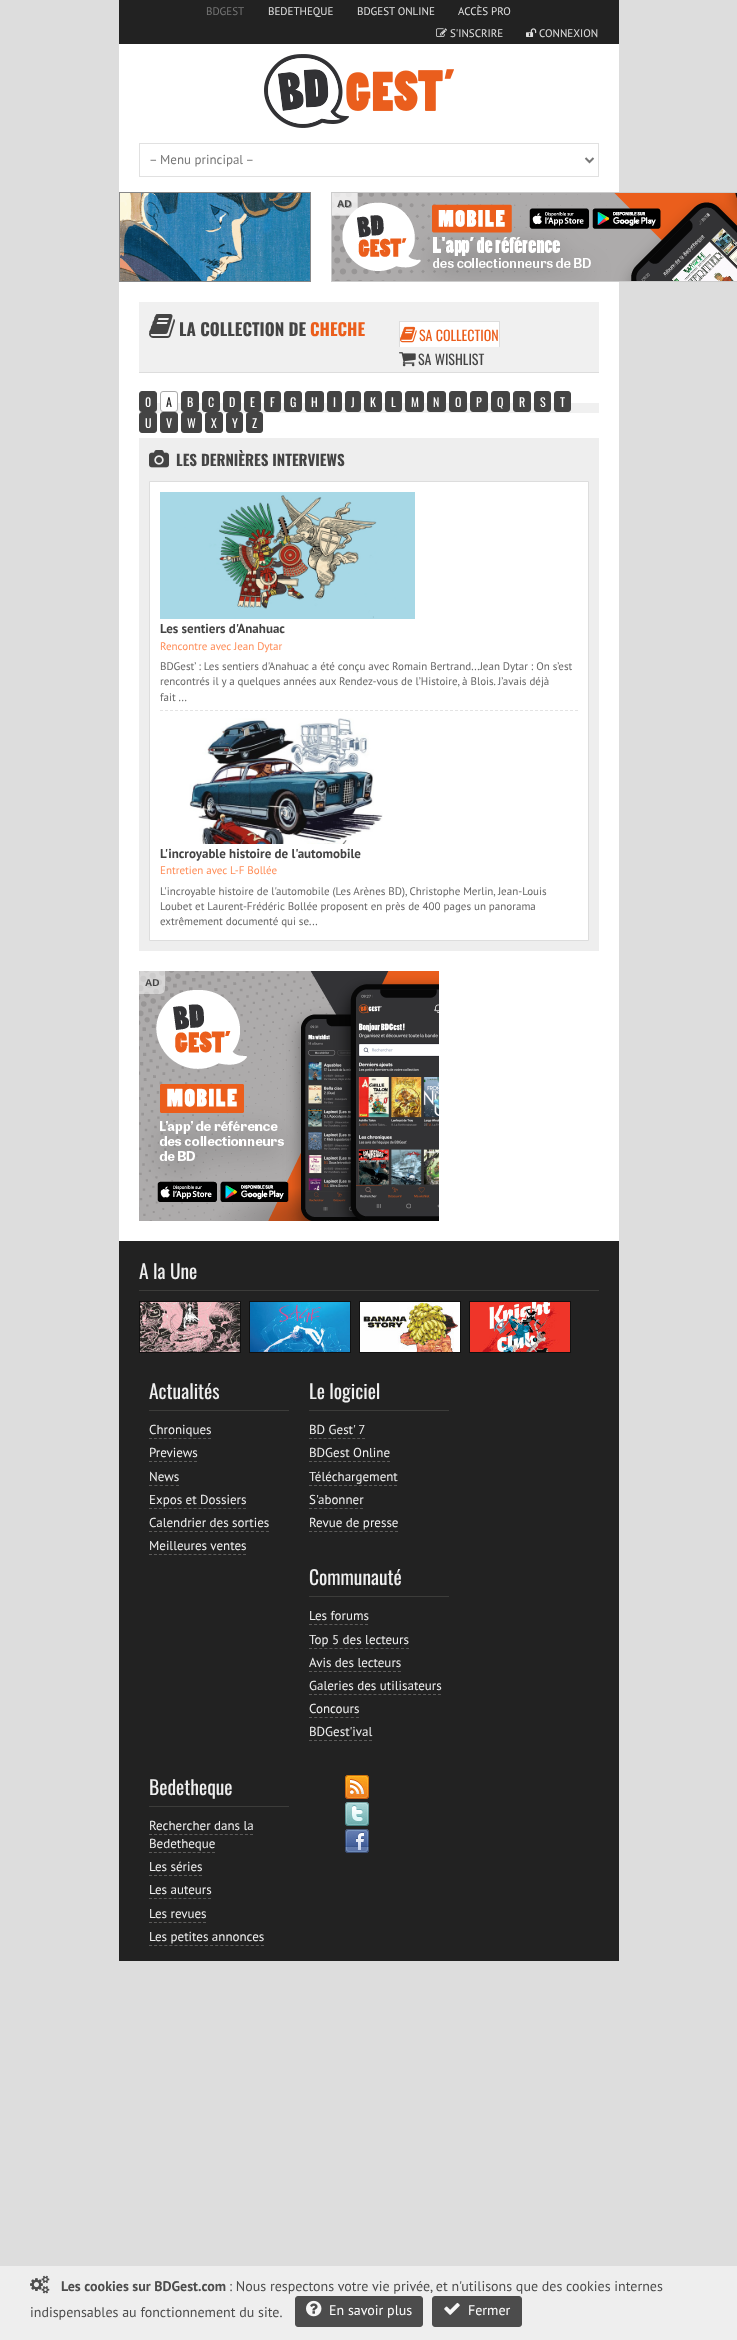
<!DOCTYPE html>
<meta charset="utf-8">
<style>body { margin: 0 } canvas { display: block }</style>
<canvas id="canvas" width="737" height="2340"></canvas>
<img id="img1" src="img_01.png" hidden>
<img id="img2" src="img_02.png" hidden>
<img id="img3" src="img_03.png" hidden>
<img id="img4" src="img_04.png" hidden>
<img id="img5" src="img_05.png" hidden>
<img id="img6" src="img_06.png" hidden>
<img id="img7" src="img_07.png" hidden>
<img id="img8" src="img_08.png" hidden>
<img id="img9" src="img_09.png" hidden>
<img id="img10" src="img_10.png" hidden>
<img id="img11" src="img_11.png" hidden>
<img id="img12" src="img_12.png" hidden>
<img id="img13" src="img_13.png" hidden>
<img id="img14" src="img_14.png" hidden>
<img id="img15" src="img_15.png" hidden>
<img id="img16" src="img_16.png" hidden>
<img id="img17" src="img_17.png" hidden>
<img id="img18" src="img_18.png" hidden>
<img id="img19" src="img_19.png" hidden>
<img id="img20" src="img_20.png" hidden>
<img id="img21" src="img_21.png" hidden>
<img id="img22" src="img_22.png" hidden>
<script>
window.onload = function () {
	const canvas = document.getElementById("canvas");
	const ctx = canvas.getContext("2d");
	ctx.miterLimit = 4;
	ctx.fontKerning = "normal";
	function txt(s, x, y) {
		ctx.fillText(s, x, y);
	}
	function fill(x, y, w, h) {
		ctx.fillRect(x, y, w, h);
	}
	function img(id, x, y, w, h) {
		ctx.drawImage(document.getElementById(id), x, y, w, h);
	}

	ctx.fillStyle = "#DDDDDD";
	fill(0, 0, 737, 2340);
	ctx.fillStyle = "#FFFFFF";
	fill(119, 44, 500, 1197);
	ctx.fillStyle = "#222222";
	fill(119, 0, 500, 44);
	img("img1", 436, 28, 11, 9);
	img("img2", 526, 28, 11, 9);
	img("img3", 264, 54, 190, 74);
	ctx.strokeStyle = "#E1E1E1";
	ctx.strokeRect(139.5, 143.5, 459, 33);
	ctx.beginPath();
	ctx.moveTo(585.5, 158);
	ctx.lineTo(589.5, 162);
	ctx.lineTo(593.5, 158);
	ctx.strokeStyle = "#777777";
	ctx.lineWidth = 2;
	ctx.stroke();
	ctx.strokeStyle = "#888888";
	ctx.lineWidth = 1;
	ctx.strokeRect(119.5, 192.5, 191, 89);
	img("img4", 120, 193, 190, 88);
	ctx.strokeStyle = "#CCCCCC";
	ctx.strokeRect(331.5, 192.5, 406, 89);
	img("img5", 332, 193, 405, 88);
	ctx.fillStyle = "rgba(255, 255, 255, 0.5)";
	ctx.beginPath();
	ctx.roundRect(332, 193, 26, 23, [0, 0, 5, 0]);
	ctx.fill();
	ctx.fillStyle = "#F0F0F0";
	fill(139, 302, 460, 70);
	ctx.fillStyle = "#DDDDDD";
	fill(139, 372, 460, 1);
	img("img6", 149, 314, 26, 24);
	ctx.fillStyle = "#FFFFFF";
	fill(400, 322, 99, 25);
	ctx.fillStyle = "#DDDDDD";
	fill(399, 321, 101, 1);
	fill(499, 321, 1, 26);
	fill(399, 321, 1, 26);
	img("img7", 400, 326, 17, 17);
	img("img8", 399, 352, 17, 15);
	ctx.fillStyle = "#F0F0F0";
	fill(139, 403, 460, 10);
	ctx.fillStyle = "#444444";
	ctx.beginPath();
	ctx.roundRect(139.5, 391.5, 17, 20, 2.5);
	ctx.fill();
	ctx.strokeStyle = "#444444";
	ctx.stroke();
	ctx.fillStyle = "#FFFFFF";
	ctx.beginPath();
	ctx.roundRect(160.5, 391.5, 17, 20, 2.5);
	ctx.fill();
	ctx.strokeStyle = "#AAAAAA";
	ctx.stroke();
	ctx.fillStyle = "#444444";
	ctx.beginPath();
	ctx.roundRect(181.5, 391.5, 17, 20, 2.5);
	ctx.fill();
	ctx.strokeStyle = "#444444";
	ctx.stroke();
	ctx.beginPath();
	ctx.roundRect(202.5, 391.5, 17, 20, 2.5);
	ctx.fill();
	ctx.stroke();
	ctx.beginPath();
	ctx.roundRect(223.5, 391.5, 17, 20, 2.5);
	ctx.fill();
	ctx.stroke();
	ctx.beginPath();
	ctx.roundRect(244.5, 391.5, 16, 20, 2.5);
	ctx.fill();
	ctx.stroke();
	ctx.beginPath();
	ctx.roundRect(264.5, 391.5, 16, 20, 2.5);
	ctx.fill();
	ctx.stroke();
	ctx.beginPath();
	ctx.roundRect(284.5, 391.5, 17, 20, 2.5);
	ctx.fill();
	ctx.stroke();
	ctx.beginPath();
	ctx.roundRect(305.5, 391.5, 18, 20, 2.5);
	ctx.fill();
	ctx.stroke();
	ctx.beginPath();
	ctx.roundRect(327.5, 391.5, 14, 20, 2.5);
	ctx.fill();
	ctx.stroke();
	ctx.beginPath();
	ctx.roundRect(345.5, 391.5, 15, 20, 2.5);
	ctx.fill();
	ctx.stroke();
	ctx.beginPath();
	ctx.roundRect(364.5, 391.5, 17, 20, 2.5);
	ctx.fill();
	ctx.stroke();
	ctx.beginPath();
	ctx.roundRect(385.5, 391.5, 16, 20, 2.5);
	ctx.fill();
	ctx.stroke();
	ctx.beginPath();
	ctx.roundRect(405.5, 391.5, 18, 20, 2.5);
	ctx.fill();
	ctx.stroke();
	ctx.beginPath();
	ctx.roundRect(427.5, 391.5, 18, 20, 2.5);
	ctx.fill();
	ctx.stroke();
	ctx.beginPath();
	ctx.roundRect(449.5, 391.5, 17, 20, 2.5);
	ctx.fill();
	ctx.stroke();
	ctx.beginPath();
	ctx.roundRect(470.5, 391.5, 17, 20, 2.5);
	ctx.fill();
	ctx.stroke();
	ctx.beginPath();
	ctx.roundRect(491.5, 391.5, 18, 20, 2.5);
	ctx.fill();
	ctx.stroke();
	ctx.beginPath();
	ctx.roundRect(513.5, 391.5, 17, 20, 2.5);
	ctx.fill();
	ctx.stroke();
	ctx.beginPath();
	ctx.roundRect(534.5, 391.5, 16, 20, 2.5);
	ctx.fill();
	ctx.stroke();
	ctx.beginPath();
	ctx.roundRect(554.5, 391.5, 16, 20, 2.5);
	ctx.fill();
	ctx.stroke();
	ctx.beginPath();
	ctx.roundRect(139.5, 412.5, 17, 20, 2.5);
	ctx.fill();
	ctx.stroke();
	ctx.beginPath();
	ctx.roundRect(160.5, 412.5, 17, 20, 2.5);
	ctx.fill();
	ctx.stroke();
	ctx.beginPath();
	ctx.roundRect(181.5, 412.5, 20, 20, 2.5);
	ctx.fill();
	ctx.stroke();
	ctx.beginPath();
	ctx.roundRect(205.5, 412.5, 17, 20, 2.5);
	ctx.fill();
	ctx.stroke();
	ctx.beginPath();
	ctx.roundRect(226.5, 412.5, 16, 20, 2.5);
	ctx.fill();
	ctx.stroke();
	ctx.beginPath();
	ctx.roundRect(246.5, 412.5, 16, 20, 2.5);
	ctx.fill();
	ctx.stroke();
	ctx.fillStyle = "#EEEEEE";
	fill(139, 438, 460, 513);
	img("img9", 149, 450, 20, 18);
	ctx.fillStyle = "#FFFFFF";
	ctx.beginPath();
	ctx.rect(149.5, 481.5, 439, 459);
	ctx.fill();
	ctx.strokeStyle = "#DDDDDD";
	ctx.stroke();
	ctx.beginPath();
	ctx.moveTo(160, 710.5);
	ctx.lineTo(578, 710.5);
	ctx.strokeStyle = "#E4E4E4";
	ctx.setLineDash([3, 2]);
	ctx.stroke();
	img("img10", 160, 492, 255, 127);
	img("img11", 189, 718, 194, 126);
	img("img12", 139, 971, 300, 250);
	ctx.fillStyle = "rgba(255, 255, 255, 0.5)";
	ctx.beginPath();
	ctx.roundRect(139, 971, 26, 23, [0, 0, 5, 0]);
	ctx.fill();
	ctx.fillStyle = "#222222";
	fill(119, 1241, 500, 720);
	ctx.fillStyle = "#3C3C3A";
	fill(139, 1290, 460, 1);
	ctx.strokeStyle = "#111111";
	ctx.setLineDash([]);
	ctx.strokeRect(139.5, 1301.5, 101, 51);
	img("img13", 140, 1302, 100, 50);
	ctx.strokeRect(249.5, 1301.5, 101, 51);
	img("img14", 250, 1302, 100, 50);
	ctx.strokeRect(359.5, 1301.5, 101, 51);
	img("img15", 360, 1302, 100, 50);
	ctx.strokeRect(469.5, 1301.5, 101, 51);
	img("img16", 470, 1302, 100, 50);
	fill(149, 1410, 140, 1);
	ctx.beginPath();
	ctx.moveTo(149, 1438.5);
	ctx.lineTo(211, 1438.5);
	ctx.strokeStyle = "#5B5A59";
	ctx.setLineDash([3, 1.92]);
	ctx.stroke();
	ctx.beginPath();
	ctx.moveTo(149, 1461.5);
	ctx.lineTo(197, 1461.5);
	ctx.setLineDash([3, 2]);
	ctx.stroke();
	ctx.beginPath();
	ctx.moveTo(149, 1485.5);
	ctx.lineTo(179, 1485.5);
	ctx.setLineDash([3, 2.4]);
	ctx.stroke();
	ctx.beginPath();
	ctx.moveTo(149, 1508.5);
	ctx.lineTo(246, 1508.5);
	ctx.setLineDash([3, 1.95]);
	ctx.stroke();
	ctx.beginPath();
	ctx.moveTo(149, 1531.5);
	ctx.lineTo(269, 1531.5);
	ctx.setLineDash([3, 2.09]);
	ctx.stroke();
	ctx.beginPath();
	ctx.moveTo(149, 1554.5);
	ctx.lineTo(246, 1554.5);
	ctx.setLineDash([3, 1.95]);
	ctx.stroke();
	fill(309, 1410, 140, 1);
	ctx.beginPath();
	ctx.moveTo(309, 1438.5);
	ctx.lineTo(365, 1438.5);
	ctx.setLineDash([3, 1.82]);
	ctx.stroke();
	ctx.beginPath();
	ctx.moveTo(309, 1461.5);
	ctx.lineTo(390, 1461.5);
	ctx.setLineDash([3, 1.88]);
	ctx.stroke();
	ctx.beginPath();
	ctx.moveTo(309, 1485.5);
	ctx.lineTo(397, 1485.5);
	ctx.setLineDash([3, 2]);
	ctx.stroke();
	ctx.beginPath();
	ctx.moveTo(309, 1508.5);
	ctx.lineTo(363, 1508.5);
	ctx.setLineDash([3, 2.1]);
	ctx.stroke();
	ctx.beginPath();
	ctx.moveTo(309, 1531.5);
	ctx.lineTo(398, 1531.5);
	ctx.setLineDash([3, 2.06]);
	ctx.stroke();
	fill(309, 1596, 140, 1);
	ctx.beginPath();
	ctx.moveTo(309, 1624.5);
	ctx.lineTo(368, 1624.5);
	ctx.setLineDash([3, 2.09]);
	ctx.stroke();
	ctx.beginPath();
	ctx.moveTo(309, 1648.5);
	ctx.lineTo(409, 1648.5);
	ctx.setLineDash([3, 2.11]);
	ctx.stroke();
	ctx.beginPath();
	ctx.moveTo(309, 1671.5);
	ctx.lineTo(401, 1671.5);
	ctx.setLineDash([3, 1.94]);
	ctx.stroke();
	ctx.beginPath();
	ctx.moveTo(309, 1694.5);
	ctx.lineTo(441, 1694.5);
	ctx.setLineDash([3, 1.96]);
	ctx.stroke();
	ctx.beginPath();
	ctx.moveTo(309, 1717.5);
	ctx.lineTo(359, 1717.5);
	ctx.setLineDash([3, 2.22]);
	ctx.stroke();
	ctx.beginPath();
	ctx.moveTo(309, 1740.5);
	ctx.lineTo(372, 1740.5);
	ctx.setLineDash([3, 2]);
	ctx.stroke();
	fill(149, 1806, 140, 1);
	ctx.beginPath();
	ctx.moveTo(149, 1834.5);
	ctx.lineTo(253, 1834.5);
	ctx.setLineDash([3, 2.05]);
	ctx.stroke();
	ctx.beginPath();
	ctx.moveTo(149, 1852.5);
	ctx.lineTo(215, 1852.5);
	ctx.setLineDash([3, 1.85]);
	ctx.stroke();
	ctx.beginPath();
	ctx.moveTo(149, 1875.5);
	ctx.lineTo(202, 1875.5);
	ctx.setLineDash([3, 2]);
	ctx.stroke();
	ctx.beginPath();
	ctx.moveTo(149, 1898.5);
	ctx.lineTo(211, 1898.5);
	ctx.setLineDash([3, 1.92]);
	ctx.stroke();
	ctx.beginPath();
	ctx.moveTo(149, 1922.5);
	ctx.lineTo(206, 1922.5);
	ctx.setLineDash([3, 1.91]);
	ctx.stroke();
	ctx.beginPath();
	ctx.moveTo(149, 1945.5);
	ctx.lineTo(264, 1945.5);
	ctx.setLineDash([3, 2.09]);
	ctx.stroke();
	img("img17", 345, 1775, 24, 24);
	img("img18", 345, 1802, 24, 24);
	img("img19", 345, 1829, 24, 24);
	ctx.fillStyle = "#EEEEEE";
	fill(0, 2266, 737, 74);
	img("img20", 30, 2275, 20, 19);
	ctx.fillStyle = "#4C4C4C";
	ctx.beginPath();
	ctx.roundRect(295.5, 2296.5, 127, 30, 2.5);
	ctx.fill();
	ctx.strokeStyle = "#4C4C4C";
	ctx.setLineDash([]);
	ctx.stroke();
	img("img21", 306, 2300, 16, 17);
	ctx.beginPath();
	ctx.roundRect(432.5, 2296.5, 89, 30, 2.5);
	ctx.fill();
	ctx.stroke();
	img("img22", 444, 2302, 16, 13);
	ctx.font = "11px PT Sans";
	ctx.fillStyle = "#777777";
	txt("BDGEST", 206, 15);
	ctx.fillStyle = "#E1E1E1";
	txt("BEDETHEQUE", 268, 15);
	txt("BDGEST ONLINE", 357, 15);
	txt("ACCÈS PRO", 458, 15);
	txt("S'INSCRIRE", 450, 37);
	txt("CONNEXION", 539, 37);
	ctx.font = "13px PT Sans";
	ctx.fillStyle = "#777777";
	txt("– Menu principal –", 149, 164);
	ctx.font = "bold 10px Liberation Sans";
	ctx.fillStyle = "#444444";
	txt("AD", 338, 208);
	ctx.fillStyle = "rgba(255, 255, 255, 0.5)";
	ctx.beginPath();
	ctx.roundRect(332, 193, 25, 22, [0, 0, 5, 0]);
	ctx.fill();
	ctx.fillStyle = "#444444";
	txt("AD", 337, 207);
	ctx.font = "bold 17px Oswald";
	txt("LA COLLECTION DE", 179, 336);
	ctx.fillStyle = "#EB5E1C";
	txt("CHECHE", 310, 336);
	ctx.font = "14px Oswald";
	txt("SA COLLECTION", 419, 341);
	ctx.fillStyle = "#444444";
	txt("SA WISHLIST", 418, 365);
	ctx.font = "12px Oswald";
	ctx.fillStyle = "#FFFFFF";
	txt("0", 145, 407);
	ctx.fillStyle = "#222222";
	txt("A", 166, 407);
	ctx.fillStyle = "#FFFFFF";
	txt("B", 187, 407);
	txt("C", 208, 407);
	txt("D", 229, 407);
	txt("E", 250, 407);
	txt("F", 270, 407);
	txt("G", 290, 407);
	txt("H", 311, 407);
	txt("I", 333, 407);
	txt("J", 351, 407);
	txt("K", 370, 407);
	txt("L", 391, 407);
	txt("M", 411, 407);
	txt("N", 433, 407);
	txt("O", 455, 407);
	txt("P", 476, 407);
	txt("Q", 497, 407);
	txt("R", 519, 407);
	txt("S", 540, 407);
	txt("T", 560, 407);
	txt("U", 145, 428);
	txt("V", 166, 428);
	txt("W", 187, 428);
	txt("X", 211, 428);
	txt("Y", 232, 428);
	txt("Z", 252, 428);
	ctx.font = "bold 15px Oswald";
	ctx.fillStyle = "#444444";
	txt("LES DERNIÈRES INTERVIEWS", 176, 466);
	ctx.font = "bold 13px PT Sans";
	txt("Les sentiers d'Anahuac", 160, 633);
	ctx.font = "11px PT Sans";
	ctx.fillStyle = "#FF8D58";
	txt("Rencontre avec Jean Dytar", 160, 650);
	ctx.fillStyle = "#666666";
	txt("BDGest’ : Les sentiers d'Anahuac a été conçu avec Romain Bertrand...Jean Dytar : On s’est", 160, 670);
	txt("rencontrés il y a quelques années aux Rendez-vous de l’Histoire, à Blois. J’avais déjà", 160, 685);
	txt("fait ...", 160, 701);
	ctx.font = "bold 13px PT Sans";
	ctx.fillStyle = "#444444";
	txt("L'incroyable histoire de l'automobile", 160, 858);
	ctx.font = "11px PT Sans";
	ctx.fillStyle = "#FF8D58";
	txt("Entretien avec L-F Bollée", 160, 874);
	ctx.fillStyle = "#666666";
	txt("L'incroyable histoire de l'automobile (Les Arènes BD), Christophe Merlin, Jean-Louis", 160, 895);
	txt("Loubet et Laurent-Frédéric Bollée proposent en près de 400 pages un panorama", 160, 910);
	txt("extrêmement documenté qui se...", 160, 925);
	ctx.font = "bold 10px Liberation Sans";
	ctx.fillStyle = "#444444";
	txt("AD", 145, 986);
	ctx.font = "19.5px Oswald";
	ctx.fillStyle = "#EFEFEF";
	txt("A la Une", 139, 1279);
	txt("Actualités", 149, 1399);
	ctx.font = "13px PT Sans";
	txt("Chroniques", 149, 1434);
	txt("Previews", 149, 1457);
	txt("News", 149, 1481);
	txt("Expos et Dossiers", 149, 1504);
	txt("Calendrier des sorties", 149, 1527);
	txt("Meilleures ventes", 149, 1550);
	ctx.font = "19.5px Oswald";
	txt("Le logiciel", 309, 1399);
	ctx.font = "13px PT Sans";
	txt("BD Gest' 7", 309, 1434);
	txt("BDGest Online", 309, 1457);
	txt("Téléchargement", 309, 1481);
	txt("S'abonner", 309, 1504);
	txt("Revue de presse", 309, 1527);
	ctx.font = "19.5px Oswald";
	txt("Communauté", 309, 1585);
	ctx.font = "13px PT Sans";
	txt("Les forums", 309, 1620);
	txt("Top 5 des lecteurs", 309, 1644);
	txt("Avis des lecteurs", 309, 1667);
	txt("Galeries des utilisateurs", 309, 1690);
	txt("Concours", 309, 1713);
	txt("BDGest'ival", 309, 1736);
	ctx.font = "19.5px Oswald";
	txt("Bedetheque", 149, 1795);
	ctx.font = "13px PT Sans";
	txt("Rechercher dans la", 149, 1830);
	txt("Bedetheque", 149, 1848);
	txt("Les séries", 149, 1871);
	txt("Les auteurs", 149, 1894);
	txt("Les revues", 149, 1918);
	txt("Les petites annonces", 149, 1941);
	ctx.font = "bold 14px PT Sans";
	ctx.fillStyle = "#4C4C4C";
	txt("Les cookies sur BDGest.com", 61, 2291);
	ctx.font = "14px PT Sans";
	txt(": Nous respectons votre vie privée, et n'utilisons que des cookies internes", 229, 2291);
	txt("indispensables au fonctionnement du site.", 30, 2317);
	ctx.fillStyle = "#FFFFFF";
	txt("En savoir plus", 329, 2315);
	txt("Fermer", 468, 2315);
};
</script>
